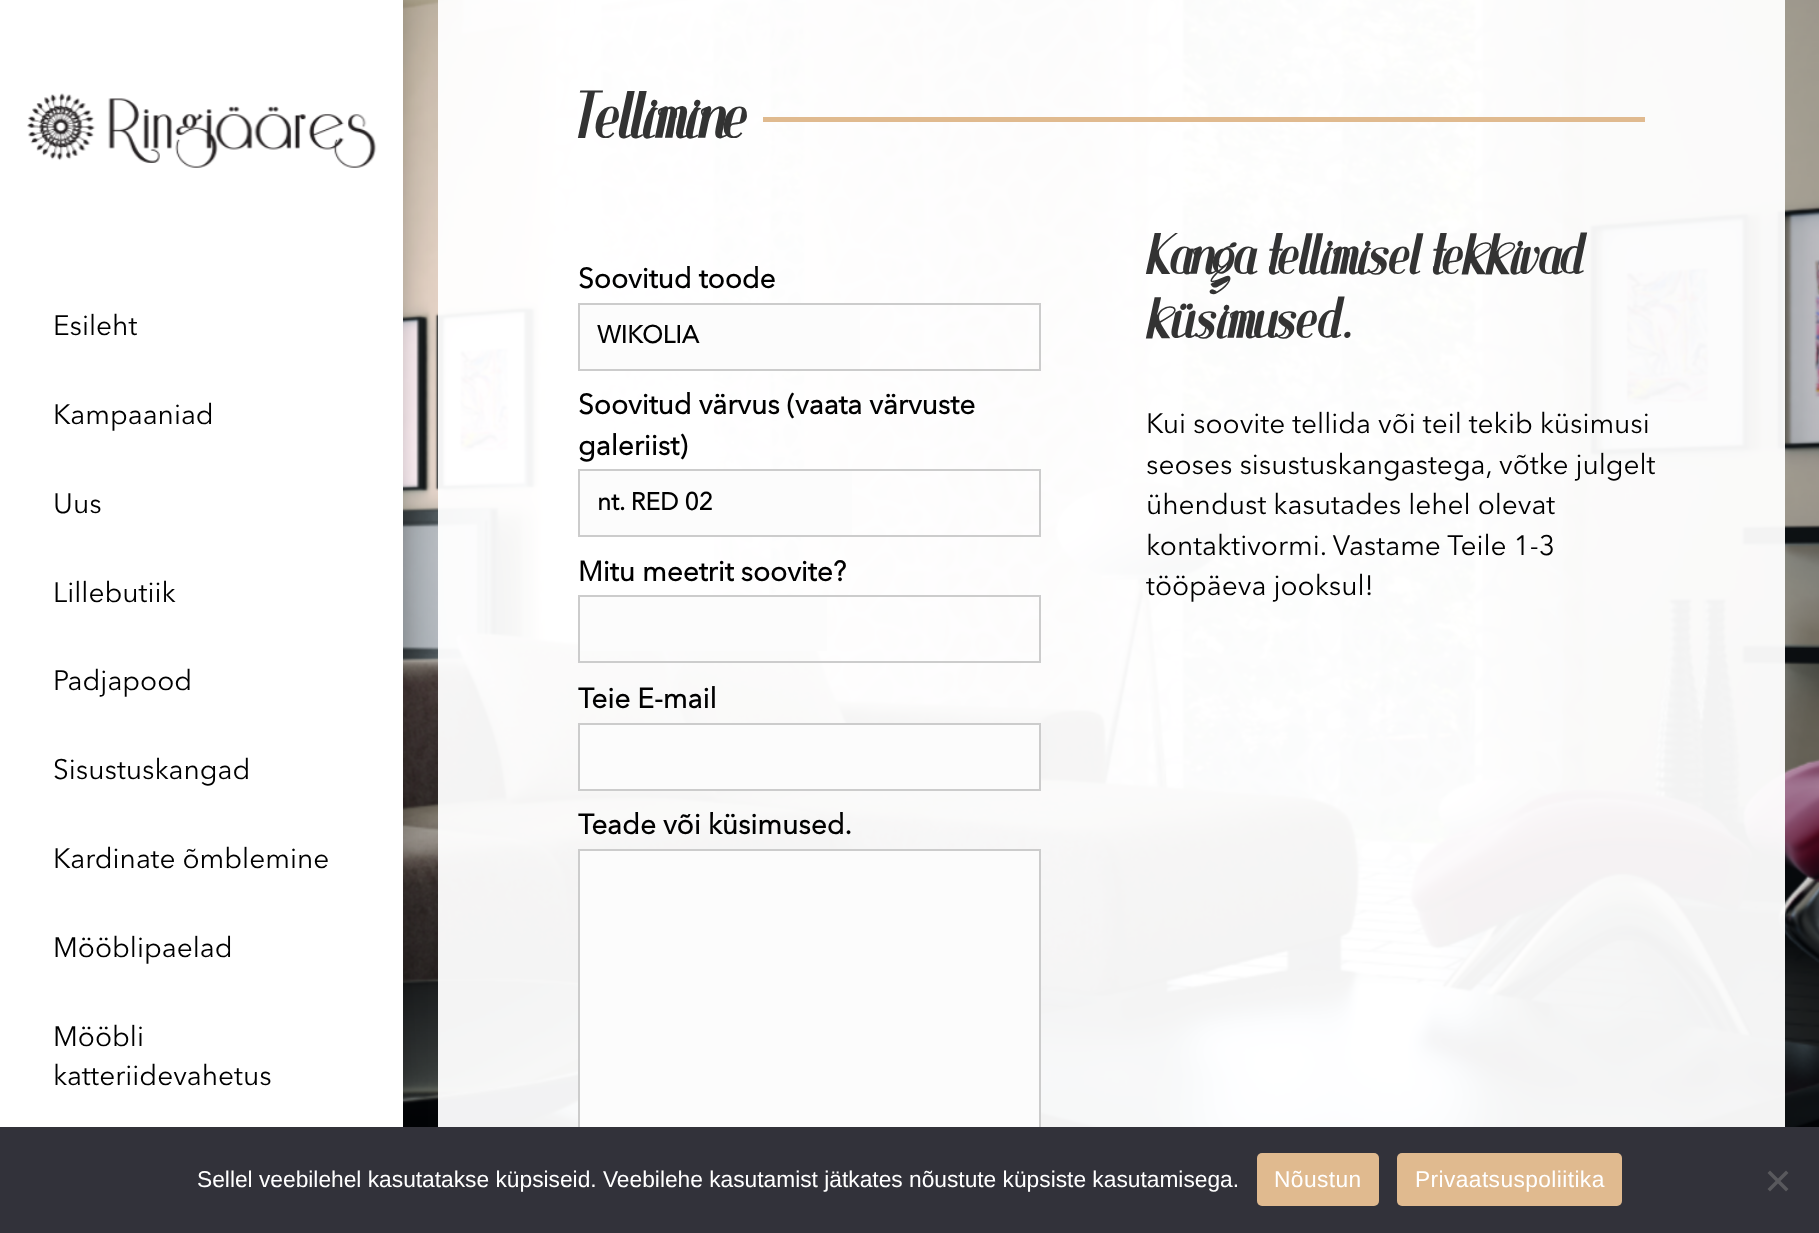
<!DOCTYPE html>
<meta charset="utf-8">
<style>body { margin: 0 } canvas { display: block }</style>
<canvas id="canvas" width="1819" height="1233"></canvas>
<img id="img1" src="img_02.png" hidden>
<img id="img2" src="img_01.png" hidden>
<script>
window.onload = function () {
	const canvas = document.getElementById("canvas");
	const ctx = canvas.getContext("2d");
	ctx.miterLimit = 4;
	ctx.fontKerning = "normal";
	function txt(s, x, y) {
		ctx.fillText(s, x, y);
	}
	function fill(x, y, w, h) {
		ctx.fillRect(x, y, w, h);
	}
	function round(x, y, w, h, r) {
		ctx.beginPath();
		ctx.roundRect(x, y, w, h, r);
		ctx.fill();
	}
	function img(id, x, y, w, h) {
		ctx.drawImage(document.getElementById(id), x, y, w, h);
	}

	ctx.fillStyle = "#FFFFFF";
	fill(0, 0, 1819, 1233);
	img("img1", 403, 0, 1416, 1127);
	ctx.save();
	ctx.beginPath();
	ctx.moveTo(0, 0);
	ctx.lineTo(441, 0);
	ctx.lineTo(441, 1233);
	ctx.lineTo(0, 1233);
	ctx.closePath();
	ctx.moveTo(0, 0);
	ctx.lineTo(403, 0);
	ctx.lineTo(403, 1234);
	ctx.lineTo(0, 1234);
	ctx.closePath();
	ctx.clip("evenodd");
	ctx.fillStyle = "rgba(0, 0, 0, 0.2)";
	ctx.filter = "blur(13px)";
	ctx.beginPath();
	ctx.rect(-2, 0, 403, 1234);
	ctx.fill();
	ctx.filter = "none";
	ctx.restore();
	ctx.fillStyle = "rgba(255, 255, 255, 0.51)";
	fill(402, 0, 1, 1127);
	img("img2", 27, 93, 350, 75);
	ctx.fillStyle = "#E0BA8F";
	fill(763, 117, 882, 5);
	ctx.fillStyle = "#FCFCFC";
	fill(580, 305, 280, 64);
	ctx.strokeStyle = "#CCCCCC";
	ctx.lineWidth = 2;
	ctx.strokeRect(579, 304, 461, 66);
	fill(580, 471, 272, 64);
	ctx.strokeRect(579, 470, 461, 66);
	fill(580, 597, 247, 54);
	ctx.strokeRect(579, 596, 461, 66);
	ctx.beginPath();
	ctx.rect(579, 724, 461, 66);
	ctx.fill();
	ctx.stroke();
	fill(580, 851, 459, 276);
	ctx.strokeRect(579, 850, 461, 334);
	ctx.fillStyle = "#32323A";
	fill(0, 1127, 1819, 106);
	ctx.fillStyle = "#E0BA8F";
	round(1257, 1153, 122, 53, 5);
	round(1397, 1153, 225, 53, 5);
	ctx.fillStyle = "#59595D";
	ctx.beginPath();
	ctx.moveTo(1786, 1170.5);
	ctx.lineTo(1788.5, 1173);
	ctx.lineTo(1770, 1191.5);
	ctx.lineTo(1767.5, 1189);
	ctx.closePath();
	ctx.fill();
	ctx.beginPath();
	ctx.moveTo(1767.5, 1173);
	ctx.lineTo(1770, 1170.5);
	ctx.lineTo(1788.5, 1189);
	ctx.lineTo(1786, 1191.5);
	ctx.closePath();
	ctx.fill();
	ctx.font = "28px Avenir Next";
	ctx.fillStyle = "#000000";
	txt("Esileht", 53, 335);
	txt("Kampaaniad", 53, 424);
	txt("Uus", 53, 513);
	txt("Lillebutiik", 53, 602);
	txt("Padjapood", 53, 690);
	txt("Sisustuskangad", 53, 779);
	txt("Kardinate õmblemine", 53, 868);
	txt("Mööblipaelad", 53, 957);
	txt("Mööbli", 53, 1046);
	txt("katteriidevahetus", 53, 1085);
	ctx.letterSpacing = "1.75px";
	ctx.font = "bold 52.5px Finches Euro";
	ctx.fillStyle = "#333333";
	txt("Tellimine", 578, 138);
	ctx.letterSpacing = "0px";
	ctx.font = "bold 28px Avenir Next";
	ctx.fillStyle = "#000000";
	txt("Soovitud toode", 578, 288);
	ctx.font = "bold 24.5px Avenir Next";
	txt("WIKOLIA", 597, 343);
	ctx.font = "bold 28px Avenir Next";
	txt("Soovitud värvus (vaata värvuste", 578, 414);
	txt("galeriist)", 578, 455);
	ctx.font = "bold 24.5px Avenir Next";
	txt("nt. RED 02", 597, 510);
	ctx.font = "bold 28px Avenir Next";
	txt("Mitu meetrit soovite?", 578, 581);
	txt("Teie E-mail", 578, 708);
	txt("Teade või küsimused.", 578, 834);
	ctx.letterSpacing = "1.75px";
	ctx.font = "bold 45.5px Finches Euro";
	ctx.fillStyle = "#333333";
	txt("Kanga tellimisel tekkivad", 1146, 274);
	txt("küsimused.", 1146, 338);
	ctx.letterSpacing = "0px";
	ctx.font = "28px Avenir Next";
	ctx.fillStyle = "#000000";
	txt("Kui soovite tellida või teil tekib küsimusi", 1146, 433);
	txt("seoses sisustuskangastega, võtke julgelt", 1146, 474);
	txt("ühendust kasutades lehel olevat", 1146, 514);
	txt("kontaktivormi. Vastame Teile 1-3", 1146, 555);
	txt("tööpäeva jooksul!", 1146, 595);
	ctx.font = "22.75px Liberation Sans";
	ctx.fillStyle = "#FFFFFF";
	txt("Sellel veebilehel kasutatakse küpsiseid. Veebilehe kasutamist jätkates nõustute küpsiste kasutamisega.", 197, 1187);
	ctx.letterSpacing = "0.4px";
	txt("Nõustun", 1274, 1187);
	txt("Privaatsuspoliitika", 1415, 1187);
};
</script>
